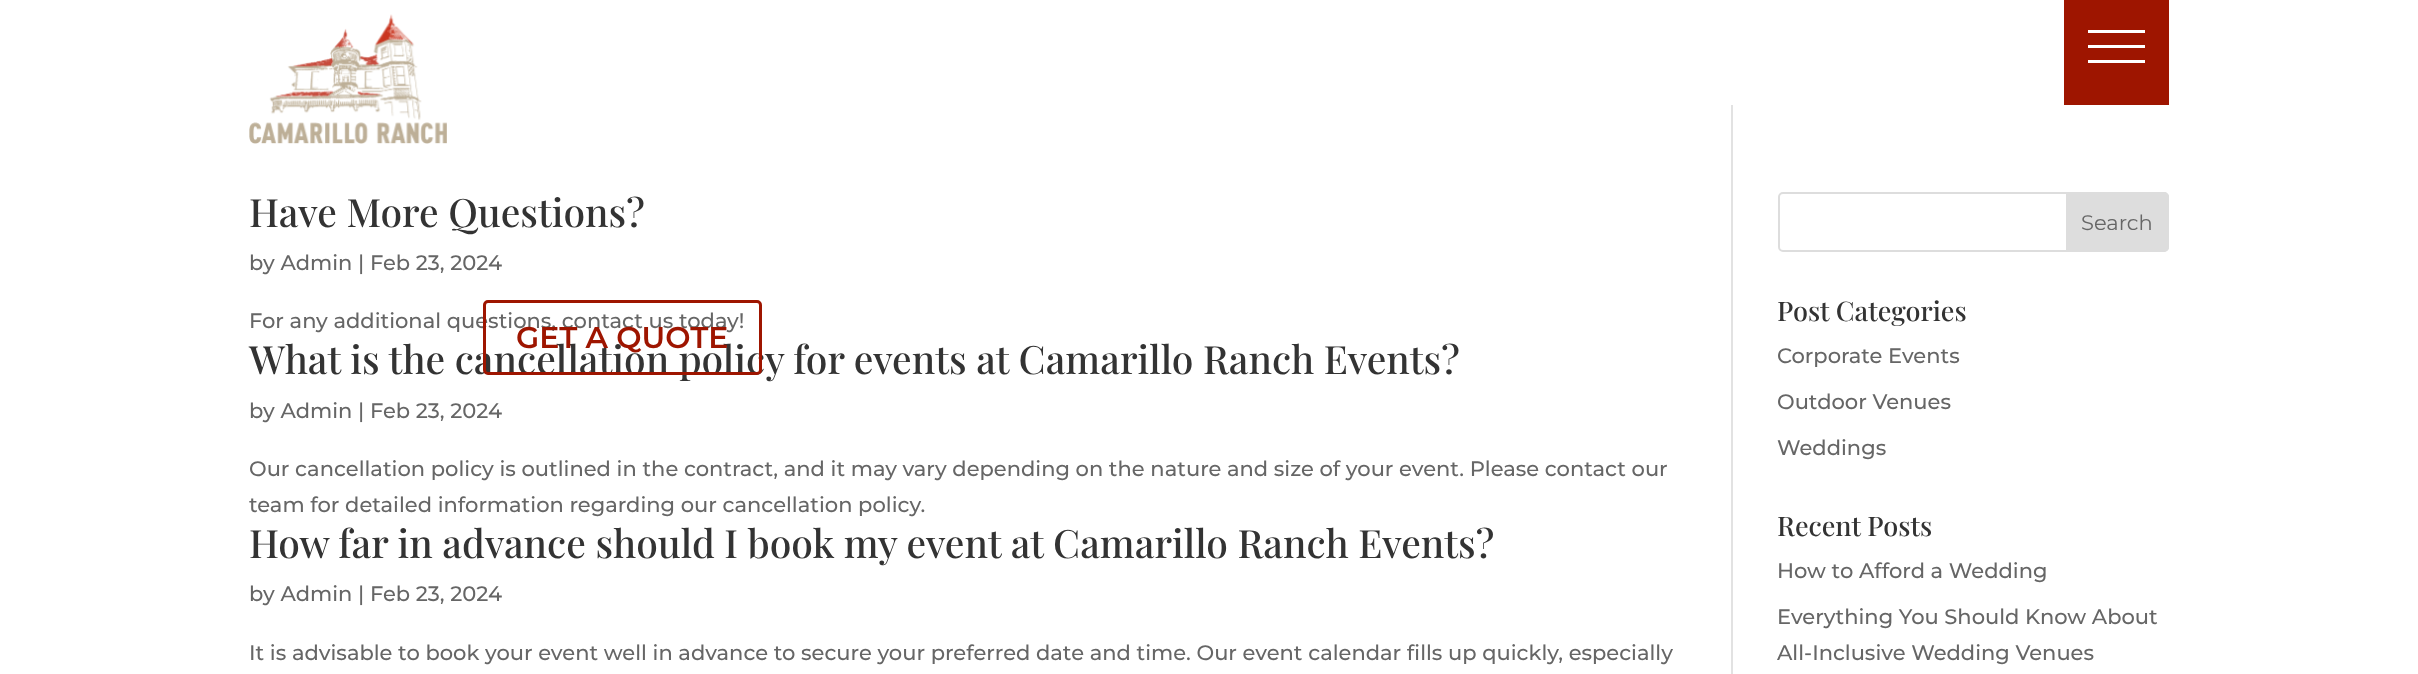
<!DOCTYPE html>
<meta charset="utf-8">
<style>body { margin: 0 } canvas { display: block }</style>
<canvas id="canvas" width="2418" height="674"></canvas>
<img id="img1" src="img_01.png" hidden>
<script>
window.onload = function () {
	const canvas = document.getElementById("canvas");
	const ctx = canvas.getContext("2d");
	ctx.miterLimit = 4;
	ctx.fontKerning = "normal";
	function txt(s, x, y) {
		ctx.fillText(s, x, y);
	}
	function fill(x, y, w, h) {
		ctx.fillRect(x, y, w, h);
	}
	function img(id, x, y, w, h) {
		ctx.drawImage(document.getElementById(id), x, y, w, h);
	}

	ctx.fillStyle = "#FFFFFF";
	fill(0, 0, 2418, 674);
	img("img1", 249, 14, 198, 130);
	ctx.fillStyle = "#9E1500";
	fill(2064, 0, 105, 105);
	ctx.fillStyle = "#FFFFFF";
	fill(2088, 30, 57, 3);
	fill(2088, 45, 57, 3);
	fill(2088, 60, 57, 3);
	ctx.fillStyle = "#E2E2E2";
	fill(1731, 105, 2, 569);
	ctx.beginPath();
	ctx.roundRect(1779, 193, 389, 58, 4);
	ctx.strokeStyle = "#DDDDDD";
	ctx.lineWidth = 2;
	ctx.stroke();
	ctx.fillStyle = "#DDDDDD";
	ctx.beginPath();
	ctx.roundRect(2067, 193, 101, 58, [0, 4, 4, 0]);
	ctx.fill();
	ctx.stroke();
	ctx.font = "500 39px Playfair Display";
	ctx.fillStyle = "#333333";
	txt("Have More Questions?", 249, 227);
	ctx.font = "500 21px Montserrat";
	ctx.fillStyle = "#666666";
	txt("by Admin | Feb 23, 2024", 249, 270);
	txt("For any additional questions, contact us today!", 249, 328);
	ctx.font = "500 39px Playfair Display";
	ctx.fillStyle = "#333333";
	txt("What is the cancellation policy for events at Camarillo Ranch Events?", 249, 374);
	ctx.font = "500 21px Montserrat";
	ctx.fillStyle = "#666666";
	txt("by Admin | Feb 23, 2024", 249, 418);
	txt("Our cancellation policy is outlined in the contract, and it may vary depending on the nature and size of your event. Please contact our", 249, 476);
	txt("team for detailed information regarding our cancellation policy.", 249, 512);
	ctx.font = "500 39px Playfair Display";
	ctx.fillStyle = "#333333";
	txt("How far in advance should I book my event at Camarillo Ranch Events?", 249, 558);
	ctx.font = "500 21px Montserrat";
	ctx.fillStyle = "#666666";
	txt("by Admin | Feb 23, 2024", 249, 601);
	txt("It is advisable to book your event well in advance to secure your preferred date and time. Our event calendar fills up quickly, especially", 249, 660);
	ctx.font = "21px Montserrat";
	txt("Search", 2081, 230);
	ctx.font = "500 27px Playfair Display";
	ctx.fillStyle = "#333333";
	txt("Post Categories", 1777, 321);
	ctx.font = "500 21px Montserrat";
	ctx.fillStyle = "#666666";
	txt("Corporate Events", 1777, 363);
	txt("Outdoor Venues", 1777, 409);
	txt("Weddings", 1777, 455);
	ctx.font = "500 27px Playfair Display";
	ctx.fillStyle = "#333333";
	txt("Recent Posts", 1777, 536);
	ctx.font = "500 21px Montserrat";
	ctx.fillStyle = "#666666";
	txt("How to Afford a Wedding", 1777, 578);
	txt("Everything You Should Know About", 1777, 624);
	txt("All-Inclusive Wedding Venues", 1777, 660);
	ctx.beginPath();
	ctx.roundRect(484.5, 301.5, 276, 72, 3.5);
	ctx.strokeStyle = "#9E1500";
	ctx.lineWidth = 3;
	ctx.stroke();
	ctx.font = "600 30px Montserrat";
	ctx.fillStyle = "#9E1500";
	txt("GET A QUOTE", 516, 348);
};
</script>
